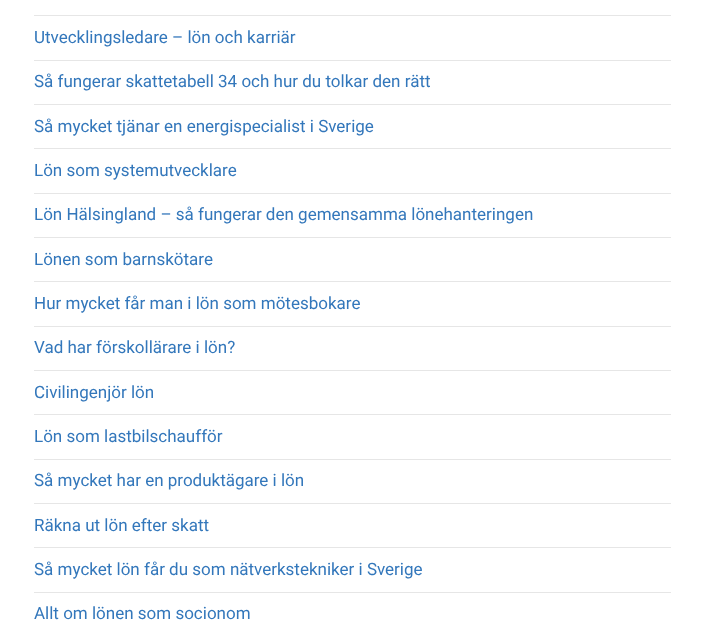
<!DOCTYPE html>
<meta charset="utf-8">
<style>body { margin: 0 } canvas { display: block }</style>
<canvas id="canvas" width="705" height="623"></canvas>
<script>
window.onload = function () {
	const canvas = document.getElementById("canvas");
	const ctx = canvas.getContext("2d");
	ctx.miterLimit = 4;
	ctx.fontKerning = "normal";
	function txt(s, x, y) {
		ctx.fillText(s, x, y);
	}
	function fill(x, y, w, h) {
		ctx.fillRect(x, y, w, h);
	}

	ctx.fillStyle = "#FFFFFF";
	fill(0, 0, 705, 623);
	ctx.fillStyle = "#E6E6E6";
	fill(34, 15, 637, 1);
	fill(34, 60, 637, 1);
	fill(34, 104, 637, 1);
	fill(34, 148, 637, 1);
	fill(34, 193, 637, 1);
	fill(34, 237, 637, 1);
	fill(34, 281, 637, 1);
	fill(34, 326, 637, 1);
	fill(34, 370, 637, 1);
	fill(34, 414, 637, 1);
	fill(34, 459, 637, 1);
	fill(34, 503, 637, 1);
	fill(34, 547, 637, 1);
	fill(34, 592, 637, 1);
	ctx.font = "17px Roboto";
	ctx.fillStyle = "#3377BB";
	txt("Utvecklingsledare – lön och karriär", 34, 43);
	txt("Så fungerar skattetabell 34 och hur du tolkar den rätt", 34, 87);
	txt("Så mycket tjänar en energispecialist i Sverige", 34, 132);
	txt("Lön som systemutvecklare", 34, 176);
	txt("Lön Hälsingland – så fungerar den gemensamma lönehanteringen", 34, 220);
	txt("Lönen som barnskötare", 34, 265);
	txt("Hur mycket får man i lön som mötesbokare", 34, 309);
	txt("Vad har förskollärare i lön?", 34, 353);
	txt("Civilingenjör lön", 34, 398);
	txt("Lön som lastbilschaufför", 34, 442);
	txt("Så mycket har en produktägare i lön", 34, 486);
	txt("Räkna ut lön efter skatt", 34, 531);
	txt("Så mycket lön får du som nätverkstekniker i Sverige", 34, 575);
	txt("Allt om lönen som socionom", 34, 619);
};
</script>
